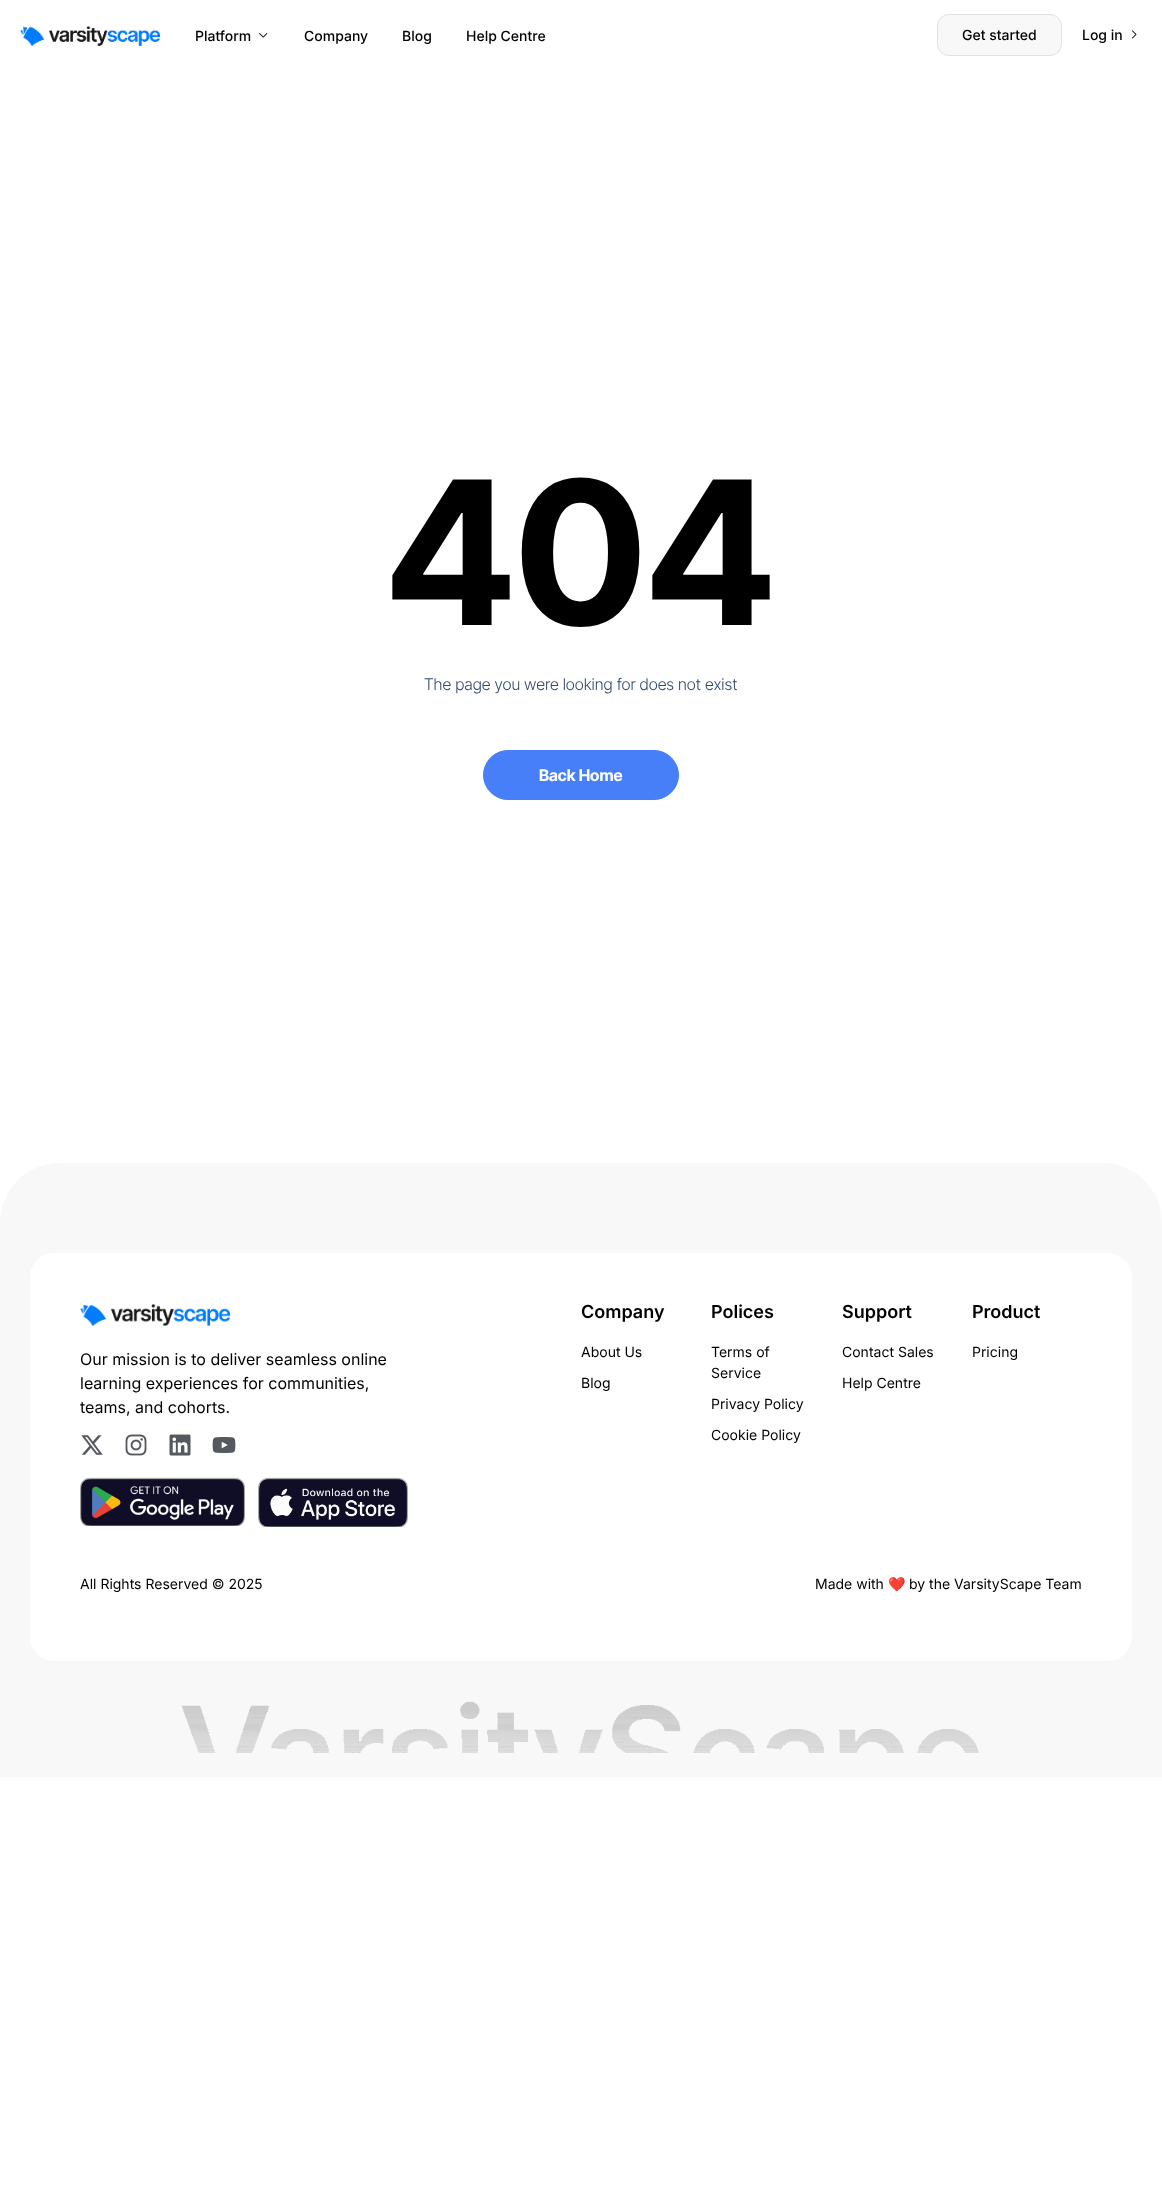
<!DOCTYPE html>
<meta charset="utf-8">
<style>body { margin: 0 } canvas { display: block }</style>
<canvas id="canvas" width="1162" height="2185"></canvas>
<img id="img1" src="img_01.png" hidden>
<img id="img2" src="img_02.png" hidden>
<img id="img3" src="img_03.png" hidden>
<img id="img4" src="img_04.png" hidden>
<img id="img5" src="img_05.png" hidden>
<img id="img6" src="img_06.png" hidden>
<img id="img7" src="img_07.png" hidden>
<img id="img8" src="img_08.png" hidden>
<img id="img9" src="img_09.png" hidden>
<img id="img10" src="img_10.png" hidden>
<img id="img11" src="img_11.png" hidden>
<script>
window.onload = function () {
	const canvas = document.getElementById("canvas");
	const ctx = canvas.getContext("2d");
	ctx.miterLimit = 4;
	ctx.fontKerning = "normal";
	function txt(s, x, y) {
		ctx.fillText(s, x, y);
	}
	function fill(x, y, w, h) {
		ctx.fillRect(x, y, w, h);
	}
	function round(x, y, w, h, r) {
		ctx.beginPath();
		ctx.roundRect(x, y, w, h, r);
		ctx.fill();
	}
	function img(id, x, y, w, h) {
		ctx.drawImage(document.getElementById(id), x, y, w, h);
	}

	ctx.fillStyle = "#FFFFFF";
	fill(0, 0, 1162, 2185);
	img("img1", 20, 26, 140, 20);
	img("img2", 259, 33, 9, 5);
	ctx.fillStyle = "#F8F8F8";
	ctx.beginPath();
	ctx.roundRect(937.5, 14.5, 124, 41, 11.5);
	ctx.fill();
	ctx.strokeStyle = "#DEE2E3";
	ctx.stroke();
	img("img3", 1132, 30, 5, 9);
	ctx.fillStyle = "#467FF7";
	ctx.beginPath();
	ctx.roundRect(483.5, 750.5, 195, 49, 24.5);
	ctx.fill();
	ctx.strokeStyle = "#467FF7";
	ctx.stroke();
	ctx.fillStyle = "#F8F8F8";
	ctx.beginPath();
	ctx.roundRect(0, 1163, 1162, 614, [60, 60, 0, 0]);
	ctx.fill();
	ctx.fillStyle = "#FFFFFF";
	round(30, 1253, 1102, 408, 24);
	img("img4", 80, 1304, 150, 22);
	img("img5", 81, 1435, 22, 20);
	img("img6", 125, 1434, 22, 22);
	img("img7", 169, 1434, 22, 22);
	img("img8", 212, 1437, 24, 16);
	img("img9", 80, 1477, 165, 49);
	img("img10", 258, 1477, 150, 50);
	img("img11", 181, 1701, 798, 52);
	ctx.font = "500 14px Inter";
	ctx.fillStyle = "#000000";
	txt("Platform", 195, 41);
	txt("Company", 304, 41);
	txt("Blog", 402, 41);
	txt("Help Centre", 466, 41);
	txt("Get started", 962, 40);
	txt("Log in", 1082, 40);
	ctx.font = "bold 200px Inter Tight";
	txt("404", 386, 625);
	ctx.font = "300 16px Inter Tight";
	ctx.fillStyle = "#324A6D";
	txt("The page you were looking for does not exist", 424, 690);
	ctx.font = "bold 16px Inter Tight";
	ctx.fillStyle = "#FFFFFF";
	txt("Back Home", 539, 781);
	ctx.font = "16px Inter";
	ctx.fillStyle = "#000000";
	txt("Our mission is to deliver seamless online", 80, 1365);
	txt("learning experiences for communities,", 80, 1389);
	txt("teams, and cohorts.", 80, 1413);
	ctx.font = "600 18px Inter";
	txt("Company", 581, 1318);
	ctx.font = "14px Inter";
	txt("About Us", 581, 1357);
	txt("Blog", 581, 1388);
	ctx.font = "600 18px Inter";
	txt("Polices", 711, 1318);
	ctx.font = "14px Inter";
	txt("Terms of", 711, 1357);
	txt("Service", 711, 1378);
	txt("Privacy Policy", 711, 1409);
	txt("Cookie Policy", 711, 1440);
	ctx.font = "600 18px Inter";
	txt("Support", 842, 1318);
	ctx.font = "14px Inter";
	txt("Contact Sales", 842, 1357);
	txt("Help Centre", 842, 1388);
	ctx.font = "600 18px Inter";
	txt("Product", 972, 1318);
	ctx.font = "14px Inter";
	txt("Pricing", 972, 1357);
	txt("All Rights Reserved © 2025", 80, 1589);
	txt("Made with", 815, 1589);
	ctx.font = "14px Noto Color Emoji";
	txt("❤️", 888, 1589);
	ctx.font = "14px Inter";
	txt("by the VarsityScape Team", 909, 1589);
};
</script>
